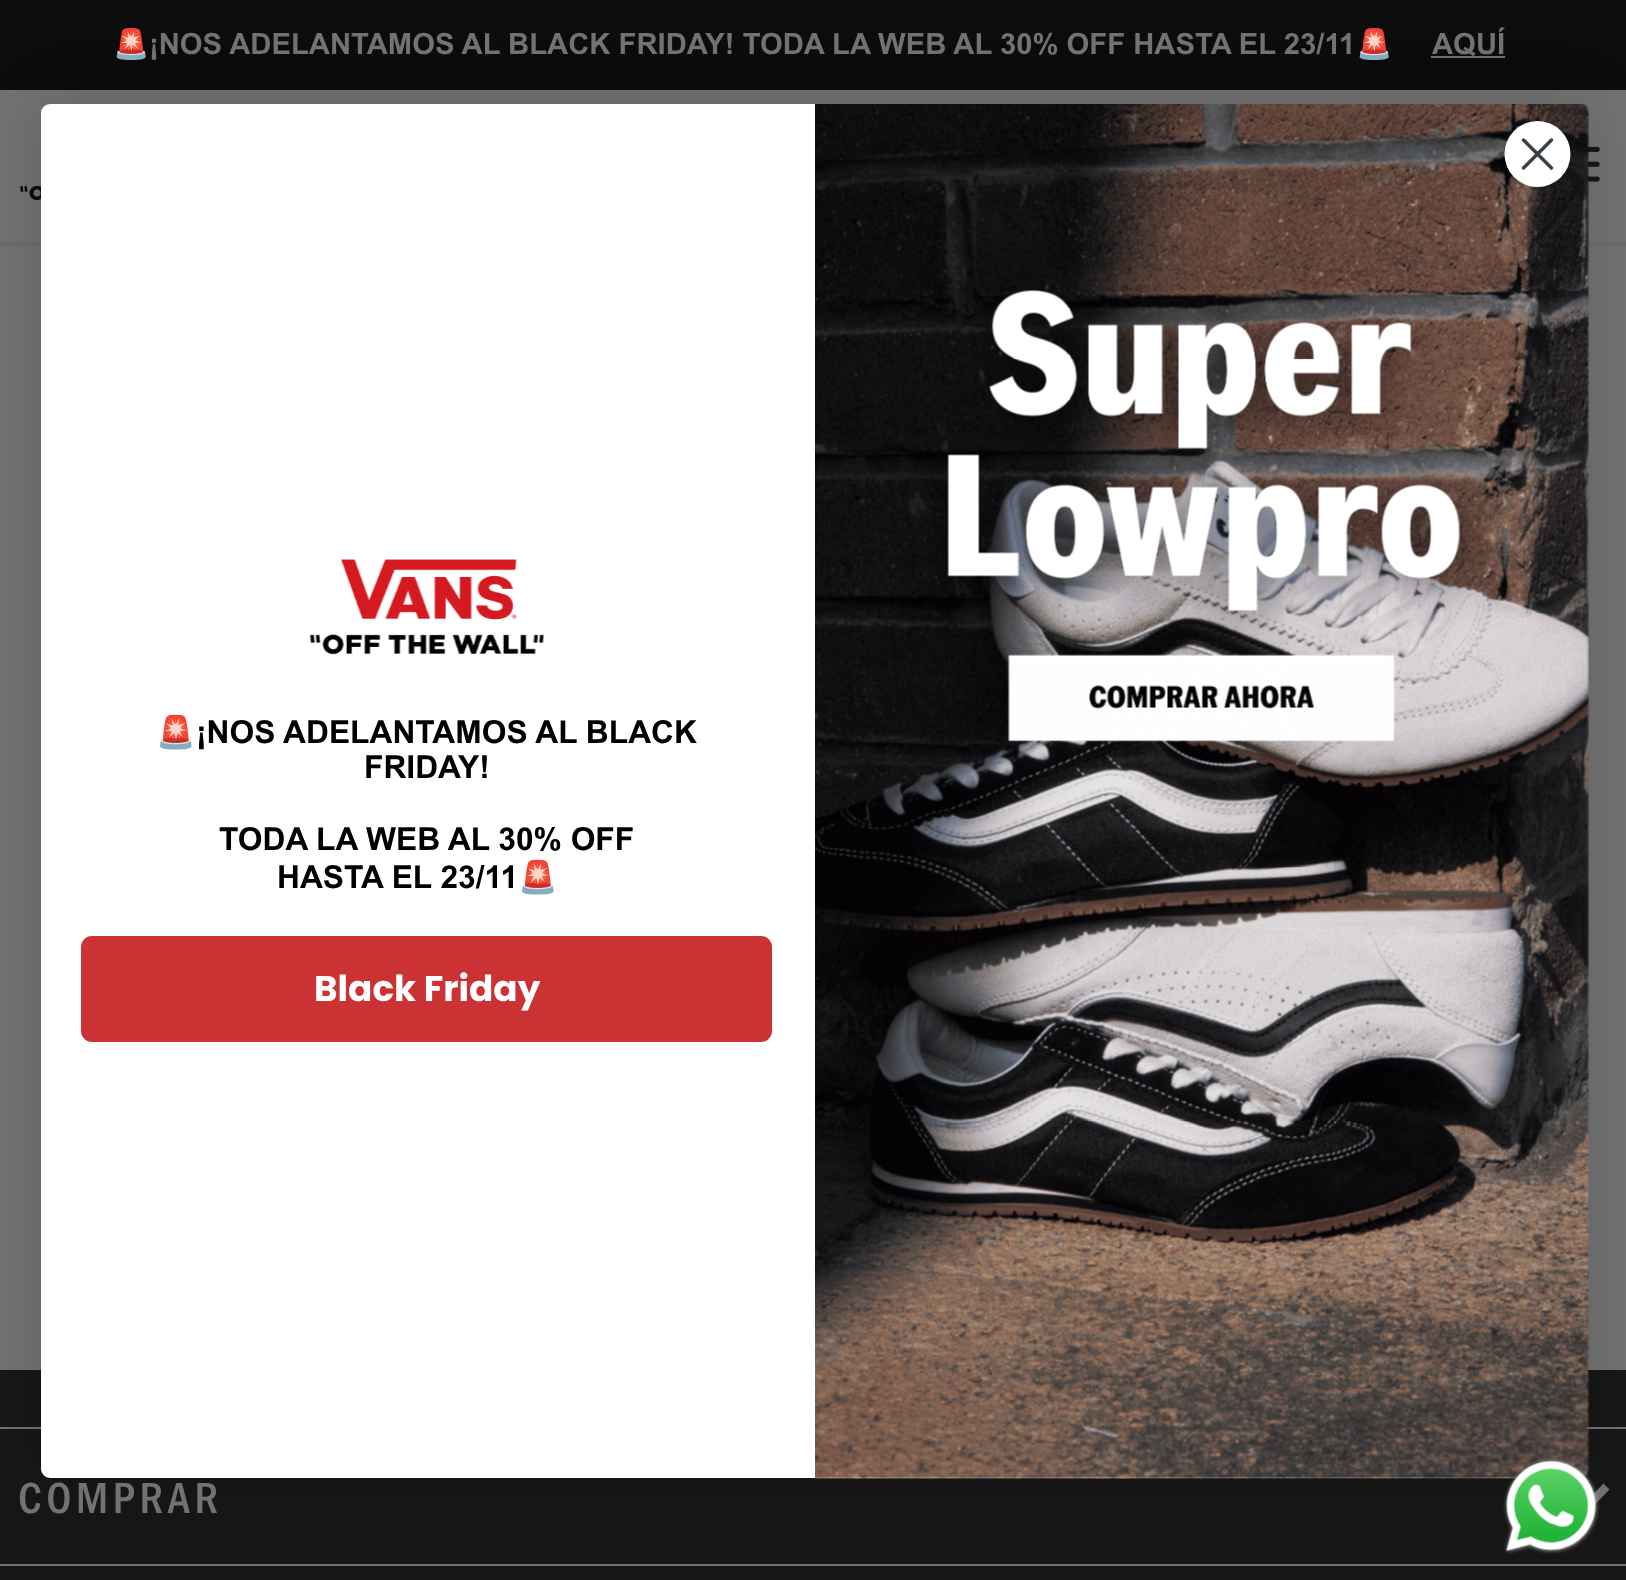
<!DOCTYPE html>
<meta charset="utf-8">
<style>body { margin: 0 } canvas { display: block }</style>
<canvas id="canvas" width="1626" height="1580"></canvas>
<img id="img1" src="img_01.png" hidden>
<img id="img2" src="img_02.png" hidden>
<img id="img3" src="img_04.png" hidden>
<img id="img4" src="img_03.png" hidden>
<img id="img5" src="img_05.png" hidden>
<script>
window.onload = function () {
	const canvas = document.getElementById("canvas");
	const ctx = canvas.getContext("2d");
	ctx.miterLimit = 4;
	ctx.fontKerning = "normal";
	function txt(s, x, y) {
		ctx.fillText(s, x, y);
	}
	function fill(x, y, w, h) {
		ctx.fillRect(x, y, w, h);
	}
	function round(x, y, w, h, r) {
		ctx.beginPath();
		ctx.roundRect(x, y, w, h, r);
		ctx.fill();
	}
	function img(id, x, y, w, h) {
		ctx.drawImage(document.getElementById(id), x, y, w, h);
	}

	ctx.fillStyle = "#727272";
	fill(0, 0, 1626, 1580);
	ctx.fillStyle = "#0C0C0C";
	fill(0, 0, 1626, 90);
	ctx.fillStyle = "#727272";
	fill(1431, 56, 74, 2);
	ctx.fillStyle = "#6C6D6D";
	fill(0, 241, 1626, 5);
	img("img1", 1587, 146, 13, 36);
	img("img2", 20, 185, 21, 15);
	ctx.fillStyle = "#171717";
	fill(0, 1370, 1626, 210);
	ctx.fillStyle = "#727272";
	fill(0, 1427, 1626, 2);
	ctx.beginPath();
	ctx.moveTo(1609.5, 1489.5);
	ctx.lineTo(1591, 1508.5);
	ctx.lineTo(1573, 1490.5);
	ctx.lineTo(1573, 1488.5);
	ctx.lineTo(1578, 1483.5);
	ctx.lineTo(1591, 1496.5);
	ctx.lineTo(1603.5, 1483.5);
	ctx.closePath();
	ctx.fill();
	fill(0, 1564, 1626, 2);
	ctx.fillStyle = "rgba(0, 0, 0, 0.15)";
	ctx.filter = "blur(30px)";
	ctx.beginPath();
	ctx.roundRect(41, 104, 1545, 1374, 9);
	ctx.fill();
	ctx.filter = "none";
	ctx.fillStyle = "#FFFFFF";
	round(41, 104, 1545, 1374, 9);
	img("img3", 815, 104, 774, 1375);
	ctx.beginPath();
	ctx.arc(1537.5, 154, 33, 0, Math.PI * 2);
	ctx.fill();
	ctx.beginPath();
	ctx.moveTo(1523.5, 140);
	ctx.lineTo(1551.5, 168);
	ctx.moveTo(1523.5, 168);
	ctx.lineTo(1551.5, 140);
	ctx.closePath();
	ctx.strokeStyle = "#373F47";
	ctx.lineWidth = 3.5;
	ctx.lineCap = "round";
	ctx.lineJoin = "round";
	ctx.stroke();
	img("img4", 309, 559, 235, 96);
	ctx.fillStyle = "#CB3234";
	round(81, 936, 691, 106, 11);
	img("img5", 1503, 1458, 97, 96);
	ctx.font = "bold 29.25px Noto Color Emoji";
	ctx.fillStyle = "#727272";
	txt("🚨", 113, 54);
	ctx.font = "bold 29.25px Arial";
	txt("¡NOS ADELANTAMOS AL BLACK FRIDAY! TODA LA WEB AL 30% OFF HASTA EL 23/11", 149, 54);
	ctx.font = "bold 29.25px Noto Color Emoji";
	txt("🚨", 1356, 54);
	ctx.font = "bold 29.25px Arial";
	txt("AQUÍ", 1432, 54);
	ctx.font = "bold 31.75px Noto Color Emoji";
	ctx.fillStyle = "#000000";
	txt("🚨", 156, 743);
	ctx.font = "bold 31.75px Arial";
	txt("¡NOS ADELANTAMOS AL BLACK", 196, 743);
	txt("FRIDAY!", 364, 778);
	txt("TODA LA WEB AL 30% OFF", 219, 850);
	txt("HASTA EL 23/11", 277, 888);
	ctx.font = "bold 31.75px Noto Color Emoji";
	txt("🚨", 518, 888);
	ctx.font = "bold 35.75px Poppins";
	ctx.fillStyle = "#FFFFFF";
	txt("Black Friday", 314, 1001);
	ctx.letterSpacing = "4.5px";
	ctx.font = "45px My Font";
	ctx.fillStyle = "#727272";
	txt("COMPRAR", 18, 1513);
};
</script>
